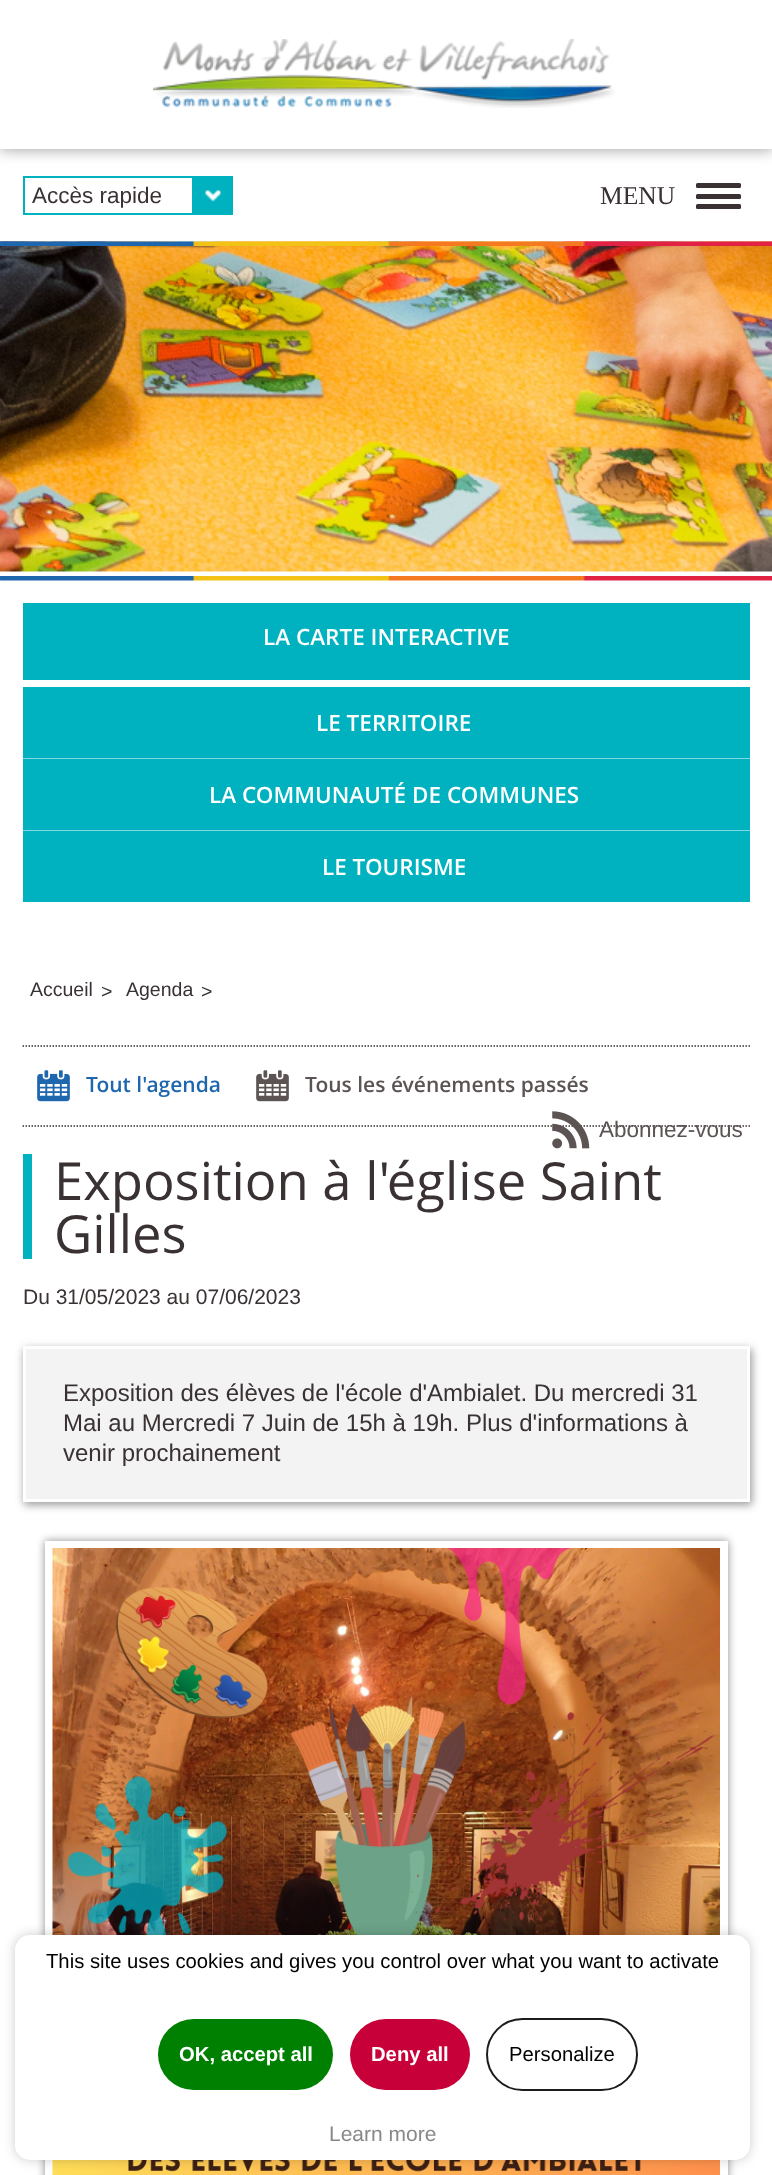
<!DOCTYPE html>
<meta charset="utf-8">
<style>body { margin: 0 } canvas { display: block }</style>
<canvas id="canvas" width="772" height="2175"></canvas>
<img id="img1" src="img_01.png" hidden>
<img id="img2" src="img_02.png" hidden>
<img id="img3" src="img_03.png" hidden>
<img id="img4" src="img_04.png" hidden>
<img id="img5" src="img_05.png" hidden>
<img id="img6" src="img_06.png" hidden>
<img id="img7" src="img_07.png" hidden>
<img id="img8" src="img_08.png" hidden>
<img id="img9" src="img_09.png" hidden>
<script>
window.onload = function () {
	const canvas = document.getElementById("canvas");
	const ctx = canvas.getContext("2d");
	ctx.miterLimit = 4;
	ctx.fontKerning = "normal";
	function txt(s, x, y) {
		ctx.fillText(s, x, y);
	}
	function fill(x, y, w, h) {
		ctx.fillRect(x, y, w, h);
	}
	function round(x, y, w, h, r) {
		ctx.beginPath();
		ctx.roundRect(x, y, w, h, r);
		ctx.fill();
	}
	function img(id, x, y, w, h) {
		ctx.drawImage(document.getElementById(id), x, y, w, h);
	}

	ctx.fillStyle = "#FFFFFF";
	fill(0, 0, 772, 2175);
	ctx.fillStyle = "rgba(92, 83, 83, 0.61)";
	ctx.filter = "blur(7.5px)";
	ctx.beginPath();
	ctx.rect(0, 0, 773, 149);
	ctx.fill();
	ctx.filter = "none";
	ctx.fillStyle = "#FFFFFF";
	fill(0, 0, 772, 149);
	img("img1", 153, 39, 462, 69);
	img("img2", 192, 178, 39, 35);
	ctx.strokeStyle = "#00B2C0";
	ctx.lineWidth = 2;
	ctx.strokeRect(24, 177, 208, 37);
	ctx.fillStyle = "#3A3232";
	round(696, 183, 45, 5, 1.5);
	round(696, 194, 45, 5, 1.5);
	round(696, 204, 45, 5, 1.5);
	img("img3", 0, 241, 772, 331);
	img("img4", 0, 241, 772, 5);
	img("img5", 0, 576, 772, 5);
	ctx.fillStyle = "#00B2C0";
	fill(23, 603, 727, 77);
	fill(23, 687, 727, 71);
	ctx.fillStyle = "#80D9E0";
	fill(23, 758, 727, 1);
	fill(23, 830, 727, 1);
	ctx.fillStyle = "#00B2C0";
	fill(23, 759, 727, 71);
	fill(23, 831, 727, 71);
	ctx.beginPath();
	ctx.moveTo(22.5, 1046);
	ctx.lineTo(750, 1046);
	ctx.strokeStyle = "#3A3232";
	ctx.lineWidth = 1.5;
	ctx.setLineDash([1.5, 1.5]);
	ctx.stroke();
	ctx.beginPath();
	ctx.moveTo(22.5, 1126);
	ctx.lineTo(750, 1126);
	ctx.stroke();
	img("img6", 37, 1070, 33, 32);
	img("img7", 256, 1070, 33, 32);
	img("img8", 552, 1111, 38, 38);
	fill(23, 1154, 9, 105);
	ctx.fillStyle = "rgba(58, 50, 50, 0.5)";
	ctx.filter = "blur(4px)";
	ctx.beginPath();
	ctx.rect(24, 1349, 728, 156);
	ctx.fill();
	ctx.filter = "none";
	ctx.fillStyle = "#F3F3F3";
	ctx.beginPath();
	ctx.rect(24.5, 1347.5, 724, 153);
	ctx.fill();
	ctx.strokeStyle = "#FFFFFF";
	ctx.lineWidth = 3;
	ctx.setLineDash([]);
	ctx.stroke();
	ctx.fillStyle = "rgba(92, 83, 83, 0.68)";
	ctx.filter = "blur(4px)";
	ctx.beginPath();
	ctx.rect(45, 1541, 683, 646);
	ctx.fill();
	ctx.filter = "none";
	ctx.lineWidth = 8;
	ctx.strokeRect(49, 1545, 675, 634);
	img("img9", 52, 1548, 668, 627);
	ctx.fillStyle = "rgba(0, 0, 0, 0.2)";
	ctx.filter = "blur(6px)";
	ctx.beginPath();
	ctx.roundRect(15, 1935, 735, 225, 15);
	ctx.fill();
	ctx.filter = "none";
	ctx.fillStyle = "#FFFFFF";
	round(15, 1935, 735, 225, 15);
	ctx.fillStyle = "#008000";
	round(158, 2019, 175, 71, 35.5);
	ctx.fillStyle = "#C70039";
	round(350, 2019, 120, 71, 35.5);
	ctx.beginPath();
	ctx.roundRect(487, 2019, 150, 71, 35.5);
	ctx.strokeStyle = "#1D1C1C";
	ctx.lineWidth = 2;
	ctx.stroke();
	ctx.font = "22.5px Liberation Sans";
	ctx.fillStyle = "#3A3232";
	txt("Accès rapide", 32, 203);
	ctx.font = "25.5px Liberation Serif";
	txt("MENU", 600, 204);
	ctx.font = "600 22.5px Open Sans";
	ctx.fillStyle = "#FFFFFF";
	txt("LA CARTE INTERACTIVE", 263, 645);
	txt("LE TERRITOIRE", 316, 731);
	txt("LA COMMUNAUTÉ DE COMMUNES", 209, 803);
	txt("LE TOURISME", 322, 875);
	ctx.font = "19.5px Liberation Sans";
	ctx.fillStyle = "#3A3232";
	txt("Accueil", 30, 996);
	txt(">", 101, 998);
	txt("Agenda", 126, 996);
	txt(">", 201, 998);
	ctx.font = "600 21px Open Sans";
	ctx.fillStyle = "#1E66AD";
	txt("Tout l'agenda", 86, 1092);
	ctx.fillStyle = "#5C5353";
	txt("Tous les événements passés", 305, 1092);
	ctx.font = "22.5px Liberation Sans";
	txt("Abonnez-vous", 599, 1137);
	ctx.font = "52.5px Open Sans";
	ctx.fillStyle = "#3A3232";
	txt("Exposition à l'église Saint", 54, 1200);
	txt("Gilles", 54, 1253);
	ctx.font = "21px Liberation Sans";
	txt("Du 31/05/2023 au 07/06/2023", 23, 1304);
	ctx.font = "24px Liberation Sans";
	txt("Exposition des élèves de l'école d'Ambialet. Du mercredi 31", 63, 1401);
	txt("Mai au Mercredi 7 Juin de 15h à 19h. Plus d'informations à", 63, 1431);
	txt("venir prochainement", 63, 1461);
	ctx.font = "20.25px Liberation Sans";
	ctx.fillStyle = "#000000";
	txt("This site uses cookies and gives you control over what you want to activate", 46, 1968);
	ctx.font = "bold 20.25px Liberation Sans";
	ctx.fillStyle = "#FFFFFF";
	txt("OK, accept all", 179, 2061);
	txt("Deny all", 371, 2061);
	ctx.font = "20.25px Liberation Sans";
	ctx.fillStyle = "#000000";
	txt("Personalize", 509, 2061);
	ctx.font = "21px Liberation Sans";
	ctx.fillStyle = "#888888";
	txt("Learn more", 329, 2141);
};
</script>
